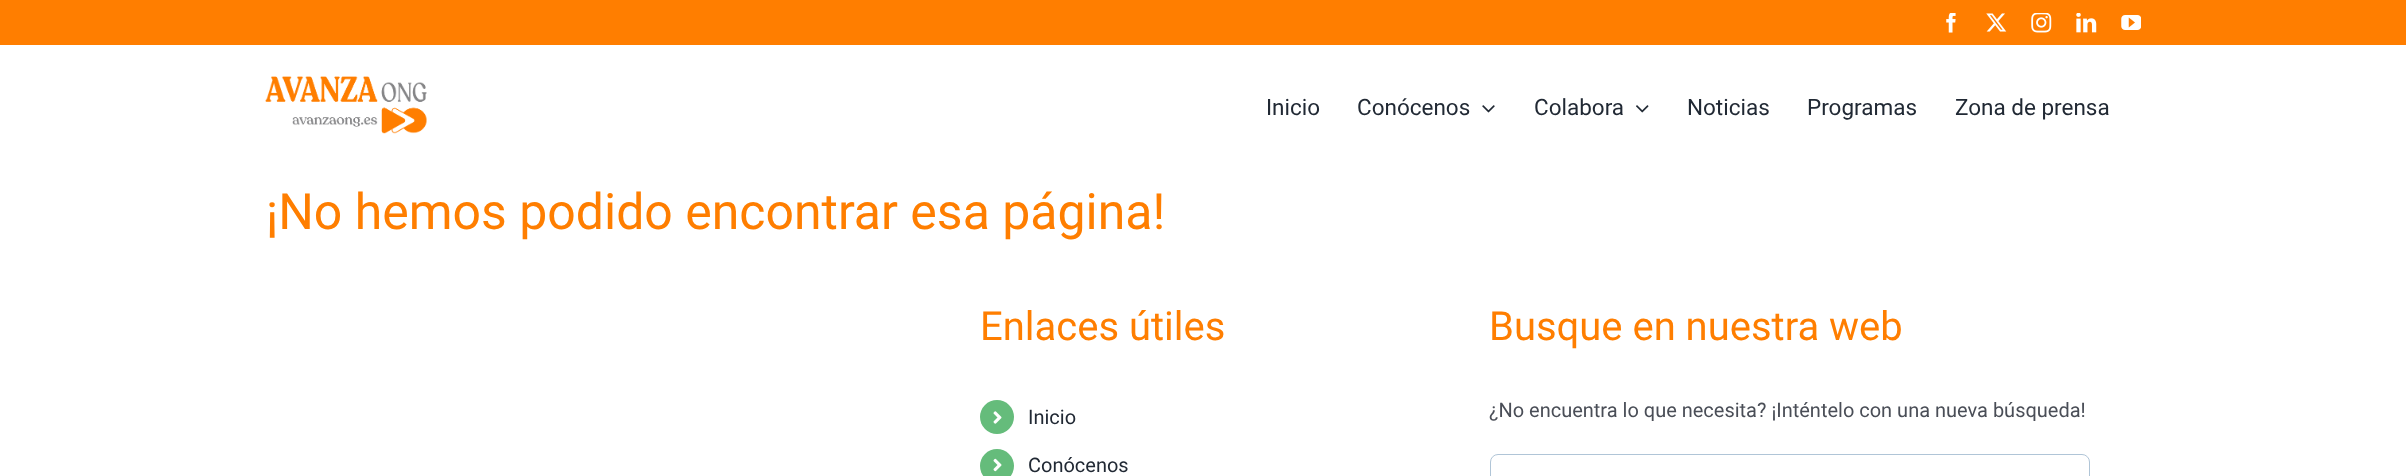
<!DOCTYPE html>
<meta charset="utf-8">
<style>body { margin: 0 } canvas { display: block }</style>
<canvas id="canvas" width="2406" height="476"></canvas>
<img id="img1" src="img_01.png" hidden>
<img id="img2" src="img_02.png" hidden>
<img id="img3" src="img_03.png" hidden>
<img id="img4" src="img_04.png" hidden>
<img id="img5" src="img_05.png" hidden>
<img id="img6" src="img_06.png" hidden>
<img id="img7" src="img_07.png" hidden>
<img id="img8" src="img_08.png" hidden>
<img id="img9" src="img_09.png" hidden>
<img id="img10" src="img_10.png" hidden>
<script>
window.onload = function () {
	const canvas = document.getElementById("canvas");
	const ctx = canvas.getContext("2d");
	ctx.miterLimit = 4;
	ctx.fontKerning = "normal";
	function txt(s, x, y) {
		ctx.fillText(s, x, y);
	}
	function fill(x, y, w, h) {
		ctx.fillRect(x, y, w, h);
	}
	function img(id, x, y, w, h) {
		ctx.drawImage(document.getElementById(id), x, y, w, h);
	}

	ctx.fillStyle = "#FFFFFF";
	fill(0, 0, 2406, 476);
	ctx.fillStyle = "#FF7E00";
	fill(0, 0, 2406, 45);
	img("img1", 1946, 13, 10, 20);
	img("img2", 1986, 13, 21, 19);
	img("img3", 2031, 13, 21, 20);
	img("img4", 2076, 13, 21, 20);
	img("img5", 2121, 15, 20, 15);
	img("img6", 265, 76, 162, 58);
	img("img7", 1482, 105, 13, 8);
	img("img8", 1636, 105, 13, 8);
	ctx.fillStyle = "#65BC7B";
	ctx.beginPath();
	ctx.arc(997, 417, 17, 0, Math.PI * 2);
	ctx.fill();
	img("img9", 993, 411, 9, 13);
	ctx.beginPath();
	ctx.arc(997, 466, 17, 0, Math.PI * 2);
	ctx.fill();
	img("img10", 993, 458, 9, 14);
	ctx.beginPath();
	ctx.roundRect(1490.5, 454.5, 599, 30, 7.5);
	ctx.strokeStyle = "#B0C5D7";
	ctx.stroke();
	ctx.font = "22.5px Roboto";
	ctx.fillStyle = "#212934";
	txt("Inicio", 1266, 115);
	txt("Conócenos", 1357, 115);
	txt("Colabora", 1534, 115);
	txt("Noticias", 1687, 115);
	txt("Programas", 1807, 115);
	txt("Zona de prensa", 1955, 115);
	ctx.font = "50px Roboto";
	ctx.fillStyle = "#FF7E00";
	txt("¡No hemos podido encontrar esa página!", 266, 229);
	ctx.font = "40px Roboto";
	txt("Enlaces útiles", 980, 340);
	ctx.font = "20px Roboto";
	ctx.fillStyle = "#212934";
	txt("Inicio", 1028, 424);
	txt("Conócenos", 1028, 472);
	ctx.font = "40px Roboto";
	ctx.fillStyle = "#FF7E00";
	txt("Busque en nuestra web", 1489, 340);
	ctx.font = "20px Roboto";
	ctx.fillStyle = "#4A4E57";
	txt("¿No encuentra lo que necesita? ¡Inténtelo con una nueva búsqueda!", 1489, 417);
};
</script>
